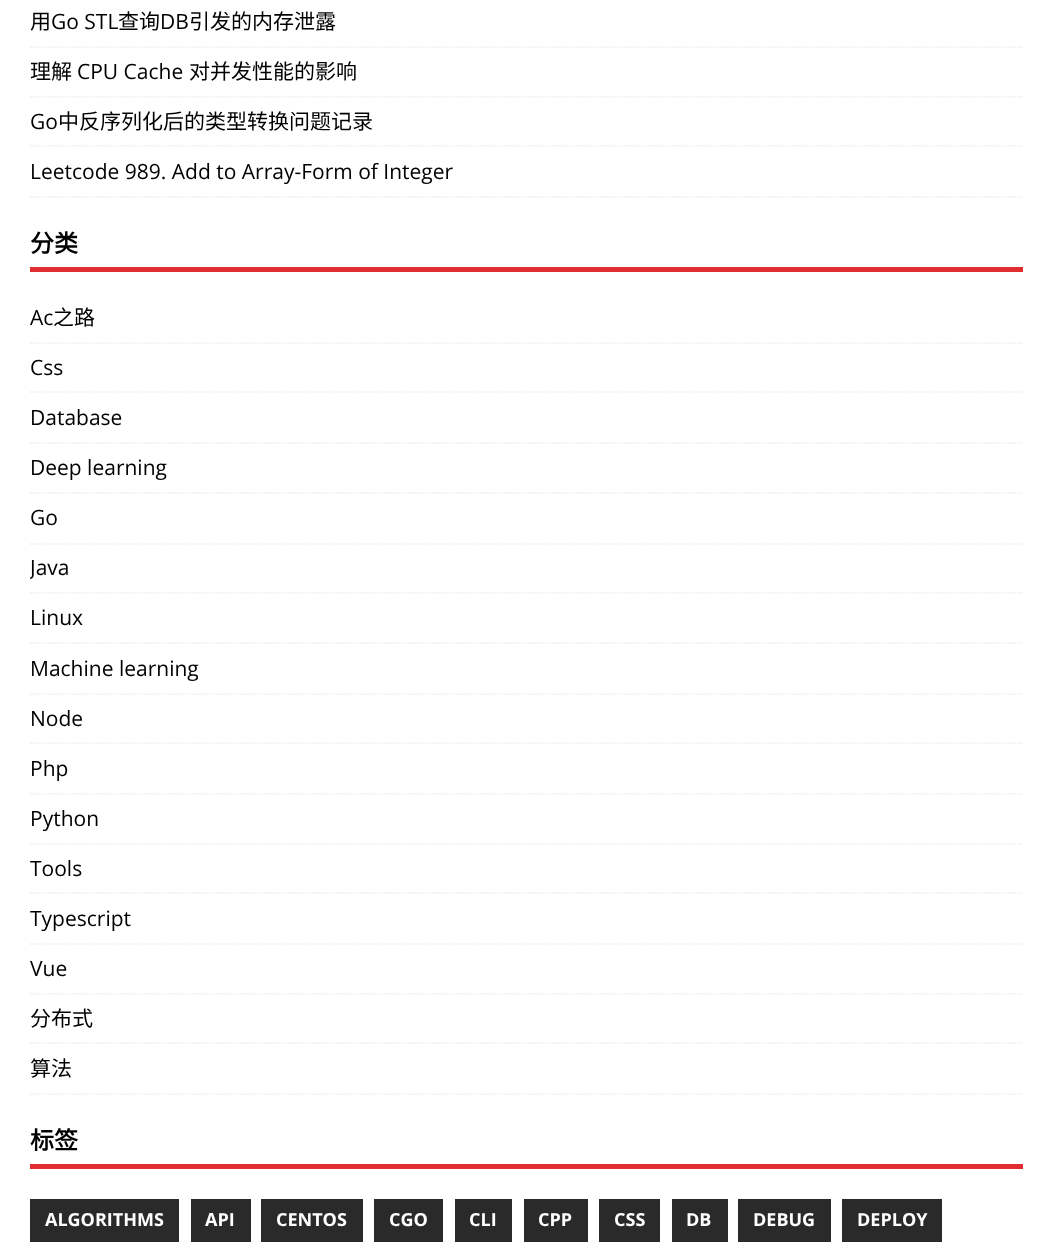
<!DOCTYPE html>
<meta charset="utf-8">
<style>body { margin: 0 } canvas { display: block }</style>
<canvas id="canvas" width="1052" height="1251"></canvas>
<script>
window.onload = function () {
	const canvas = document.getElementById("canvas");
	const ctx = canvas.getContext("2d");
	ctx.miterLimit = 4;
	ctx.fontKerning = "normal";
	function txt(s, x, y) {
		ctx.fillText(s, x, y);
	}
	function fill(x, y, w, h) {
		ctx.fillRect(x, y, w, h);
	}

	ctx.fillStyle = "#FFFFFF";
	fill(0, 0, 1052, 1251);
	ctx.beginPath();
	ctx.moveTo(30, 47);
	ctx.lineTo(1023, 47);
	ctx.strokeStyle = "#EBEBEB";
	ctx.lineWidth = 1.5;
	ctx.setLineDash([1.5, 1.5]);
	ctx.stroke();
	ctx.beginPath();
	ctx.moveTo(30, 97);
	ctx.lineTo(1023, 97);
	ctx.stroke();
	ctx.beginPath();
	ctx.moveTo(30, 146);
	ctx.lineTo(1023, 146);
	ctx.stroke();
	ctx.beginPath();
	ctx.moveTo(30, 197);
	ctx.lineTo(1023, 197);
	ctx.stroke();
	ctx.fillStyle = "#E22D30";
	fill(30, 267, 993, 5);
	ctx.beginPath();
	ctx.moveTo(30, 343);
	ctx.lineTo(1023, 343);
	ctx.stroke();
	ctx.beginPath();
	ctx.moveTo(30, 392);
	ctx.lineTo(1023, 392);
	ctx.stroke();
	ctx.beginPath();
	ctx.moveTo(30, 443);
	ctx.lineTo(1023, 443);
	ctx.stroke();
	ctx.beginPath();
	ctx.moveTo(30, 493);
	ctx.lineTo(1023, 493);
	ctx.stroke();
	ctx.beginPath();
	ctx.moveTo(30, 544);
	ctx.lineTo(1023, 544);
	ctx.stroke();
	ctx.beginPath();
	ctx.moveTo(30, 593);
	ctx.lineTo(1023, 593);
	ctx.stroke();
	ctx.beginPath();
	ctx.moveTo(30, 643);
	ctx.lineTo(1023, 643);
	ctx.stroke();
	ctx.beginPath();
	ctx.moveTo(30, 694);
	ctx.lineTo(1023, 694);
	ctx.stroke();
	ctx.beginPath();
	ctx.moveTo(30, 743);
	ctx.lineTo(1023, 743);
	ctx.stroke();
	ctx.beginPath();
	ctx.moveTo(30, 794);
	ctx.lineTo(1023, 794);
	ctx.stroke();
	ctx.beginPath();
	ctx.moveTo(30, 844);
	ctx.lineTo(1023, 844);
	ctx.stroke();
	ctx.beginPath();
	ctx.moveTo(30, 893);
	ctx.lineTo(1023, 893);
	ctx.stroke();
	ctx.beginPath();
	ctx.moveTo(30, 944);
	ctx.lineTo(1023, 944);
	ctx.stroke();
	ctx.beginPath();
	ctx.moveTo(30, 994);
	ctx.lineTo(1023, 994);
	ctx.stroke();
	ctx.beginPath();
	ctx.moveTo(30, 1043);
	ctx.lineTo(1023, 1043);
	ctx.stroke();
	ctx.beginPath();
	ctx.moveTo(30, 1094);
	ctx.lineTo(1023, 1094);
	ctx.stroke();
	fill(30, 1164, 993, 5);
	ctx.fillStyle = "#2A2A2A";
	fill(30, 1199, 149, 43);
	fill(191, 1199, 60, 43);
	fill(261, 1199, 102, 43);
	fill(374, 1199, 69, 43);
	fill(455, 1199, 57, 43);
	fill(524, 1199, 64, 43);
	fill(599, 1199, 61, 43);
	fill(672, 1199, 56, 43);
	fill(738, 1199, 93, 43);
	fill(842, 1199, 100, 43);
	ctx.font = "21px Noto Sans CJK SC";
	ctx.fillStyle = "#000000";
	txt("用", 30, 29);
	ctx.font = "21px Open Sans";
	txt("Go STL", 51, 29);
	ctx.font = "21px Noto Sans CJK SC";
	txt("查询", 118, 29);
	ctx.font = "21px Open Sans";
	txt("DB", 160, 29);
	ctx.font = "21px Noto Sans CJK SC";
	txt("引发的内存泄露", 189, 29);
	txt("理解", 30, 79);
	ctx.font = "21px Open Sans";
	txt("CPU Cache", 77, 79);
	ctx.font = "21px Noto Sans CJK SC";
	txt("对并发性能的影响", 189, 79);
	ctx.font = "21px Open Sans";
	txt("Go", 30, 129);
	ctx.font = "21px Noto Sans CJK SC";
	txt("中反序列化后的类型转换问题记录", 58, 129);
	ctx.font = "21px Open Sans";
	txt("Leetcode 989. Add to Array-Form of Integer", 30, 179);
	ctx.font = "bold 24px Noto Sans CJK SC";
	txt("分类", 30, 252);
	ctx.font = "21px Open Sans";
	txt("Ac", 30, 325);
	ctx.font = "21px Noto Sans CJK SC";
	txt("之路", 53, 325);
	ctx.font = "21px Open Sans";
	txt("Css", 30, 375);
	txt("Database", 30, 425);
	txt("Deep learning", 30, 475);
	txt("Go", 30, 525);
	ctx.save();
	ctx.beginPath();
	ctx.rect(30, 228, 993, 867);
	ctx.clip();
	txt("Java", 30, 575);
	ctx.restore();
	txt("Linux", 30, 625);
	txt("Machine learning", 30, 676);
	txt("Node", 30, 726);
	txt("Php", 30, 776);
	txt("Python", 30, 826);
	txt("Tools", 30, 876);
	txt("Typescript", 30, 926);
	txt("Vue", 30, 976);
	ctx.font = "21px Noto Sans CJK SC";
	txt("分布式", 30, 1026);
	txt("算法", 30, 1076);
	ctx.font = "bold 24px Noto Sans CJK SC";
	txt("标签", 30, 1149);
	ctx.font = "bold 18px Open Sans";
	ctx.fillStyle = "#FFFFFF";
	txt("ALGORITHMS", 45, 1226);
	txt("API", 205, 1226);
	txt("CENTOS", 276, 1226);
	txt("CGO", 389, 1226);
	txt("CLI", 469, 1226);
	txt("CPP", 538, 1226);
	txt("CSS", 614, 1226);
	txt("DB", 686, 1226);
	txt("DEBUG", 753, 1226);
	txt("DEPLOY", 857, 1226);
};
</script>
